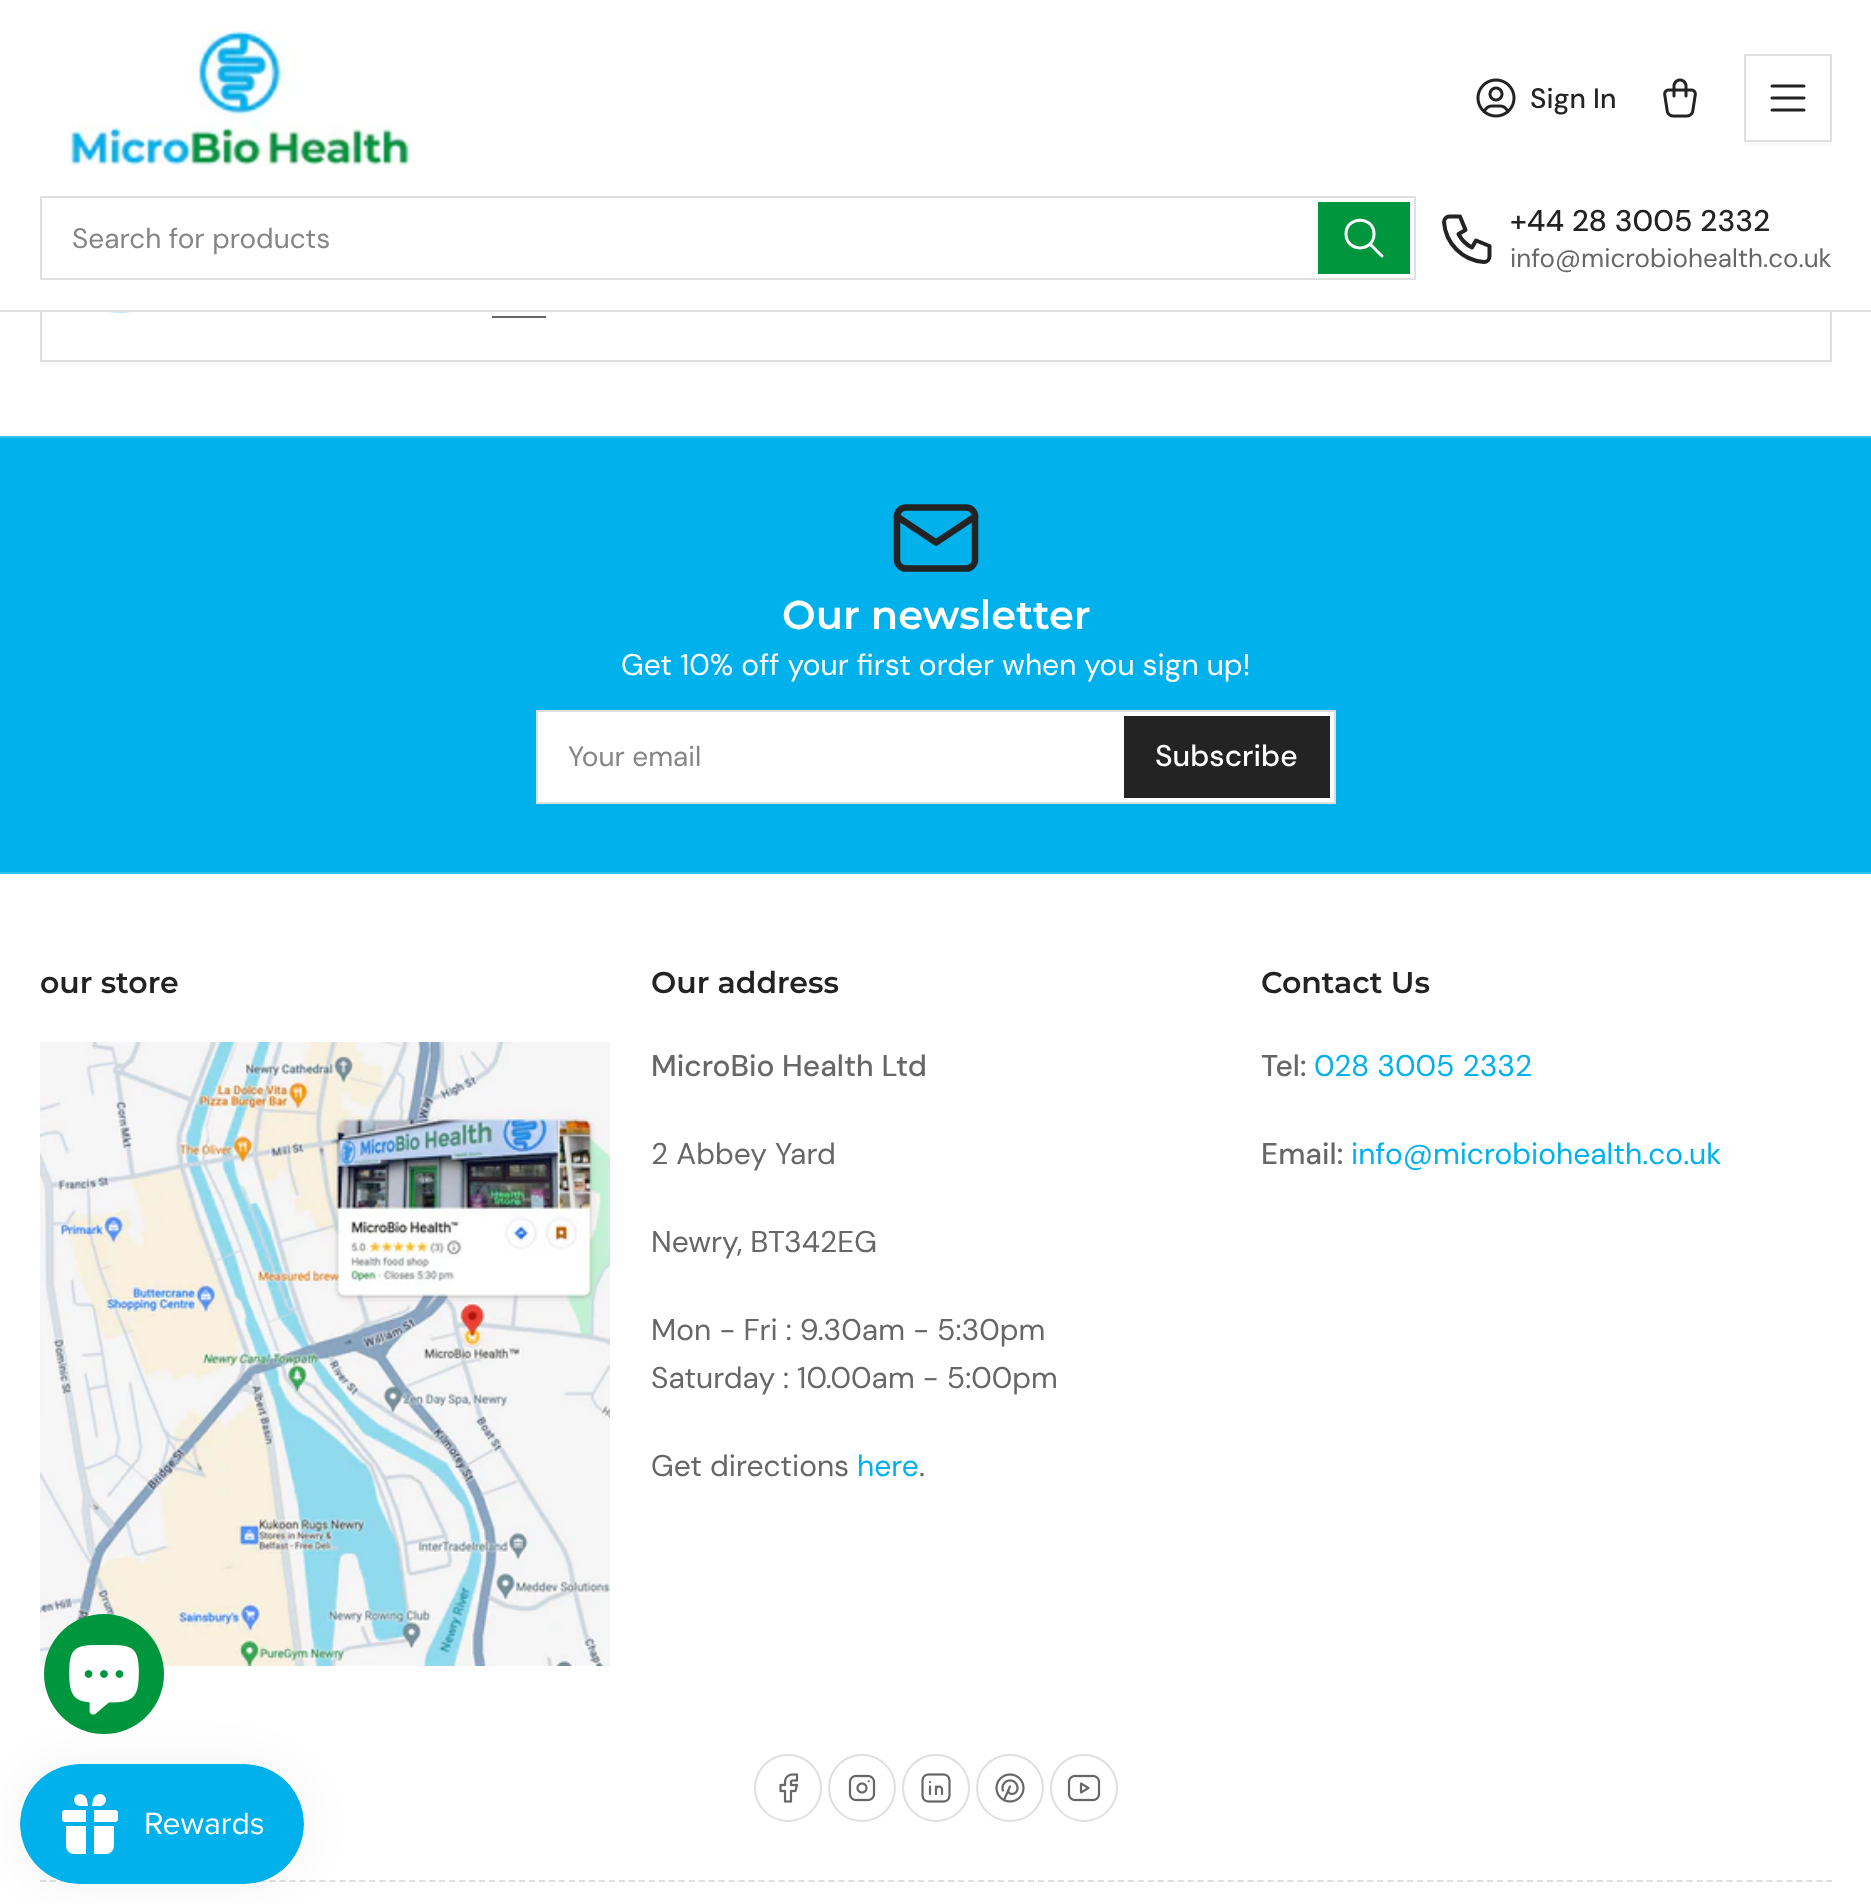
<!DOCTYPE html>
<meta charset="utf-8">
<style>body { margin: 0 } canvas { display: block }</style>
<canvas id="canvas" width="1871" height="1904"></canvas>
<img id="img1" src="img_01.png" hidden>
<img id="img2" src="img_02.png" hidden>
<img id="img3" src="img_03.png" hidden>
<img id="img4" src="img_04.png" hidden>
<img id="img5" src="img_05.png" hidden>
<img id="img6" src="img_06.png" hidden>
<img id="img7" src="img_07.png" hidden>
<img id="img8" src="img_08.png" hidden>
<img id="img9" src="img_09.png" hidden>
<img id="img10" src="img_10.png" hidden>
<img id="img11" src="img_11.png" hidden>
<img id="img12" src="img_12.png" hidden>
<script>
window.onload = function () {
	const canvas = document.getElementById("canvas");
	const ctx = canvas.getContext("2d");
	ctx.miterLimit = 4;
	ctx.fontKerning = "normal";
	function txt(s, x, y) {
		ctx.fillText(s, x, y);
	}
	function fill(x, y, w, h) {
		ctx.fillRect(x, y, w, h);
	}
	function img(id, x, y, w, h) {
		ctx.drawImage(document.getElementById(id), x, y, w, h);
	}

	ctx.fillStyle = "#FFFFFF";
	fill(0, 0, 1871, 1904);
	ctx.strokeStyle = "#DFDFDF";
	ctx.lineWidth = 2;
	ctx.strokeRect(41, 201, 1790, 160);
	ctx.fillStyle = "#DFDFDF";
	fill(0, 310, 1871, 2);
	ctx.fillStyle = "#FFFFFF";
	fill(40, 200, 1792, 110);
	img("img1", 69, 30, 341, 136);
	img("img2", 1476, 78, 40, 40);
	img("img3", 1663, 78, 34, 40);
	ctx.fillStyle = "#F9F9F9";
	fill(1744, 142, 88, 4);
	ctx.strokeRect(1745, 55, 86, 86);
	ctx.beginPath();
	ctx.moveTo(1772, 86);
	ctx.lineTo(1804, 86);
	ctx.moveTo(1772, 98);
	ctx.lineTo(1804, 98);
	ctx.moveTo(1772, 110);
	ctx.lineTo(1804, 110);
	ctx.strokeStyle = "#232323";
	ctx.lineWidth = 3;
	ctx.lineCap = "round";
	ctx.lineJoin = "round";
	ctx.stroke();
	ctx.strokeStyle = "#DFDFDF";
	ctx.lineWidth = 2;
	ctx.lineJoin = "miter";
	ctx.strokeRect(41, 197, 1374, 82);
	ctx.strokeStyle = "#00963E";
	ctx.strokeRect(1319, 203, 90, 70);
	ctx.fillStyle = "#00963E";
	fill(1320, 204, 88, 68);
	ctx.beginPath();
	ctx.moveTo(1346, 234);
	ctx.bezierCurveTo(1346, 252.5, 1374, 252.5, 1374, 234);
	ctx.bezierCurveTo(1374, 215.5, 1346, 215.5, 1346, 234);
	ctx.moveTo(1382, 256);
	ctx.lineTo(1370, 244);
	ctx.strokeStyle = "#FFFFFF";
	ctx.lineWidth = 3;
	ctx.lineJoin = "round";
	ctx.stroke();
	ctx.beginPath();
	ctx.moveTo(1449.5, 216.5);
	ctx.lineTo(1460, 216.5);
	ctx.lineTo(1465.5, 230);
	ctx.lineTo(1458.5, 234);
	ctx.bezierCurveTo(1461.5, 240, 1466, 244.5, 1472, 247.5);
	ctx.lineTo(1476, 240.5);
	ctx.lineTo(1489.5, 246);
	ctx.lineTo(1489.5, 256.5);
	ctx.bezierCurveTo(1489.5, 259.5, 1487, 262, 1484, 262);
	ctx.bezierCurveTo(1462.5, 260.5, 1445.5, 243.5, 1444, 222);
	ctx.bezierCurveTo(1444, 219, 1446.5, 216.5, 1449.5, 216.5);
	ctx.strokeStyle = "#232323";
	ctx.lineWidth = 4;
	ctx.stroke();
	ctx.fillStyle = "#F9F9F9";
	fill(40, 362, 1792, 4);
	img("img4", 109, 312, 22, 2);
	ctx.fillStyle = "#676767";
	fill(492, 316, 54, 2);
	ctx.fillStyle = "#00B1EB";
	fill(0, 438, 1871, 434);
	ctx.fillStyle = "#33C1EF";
	fill(0, 436, 1871, 2);
	fill(0, 872, 1871, 2);
	ctx.beginPath();
	ctx.moveTo(897, 516.5);
	ctx.bezierCurveTo(897, 511.5, 901, 507.5, 905.5, 507.5);
	ctx.lineTo(966.5, 507.5);
	ctx.bezierCurveTo(971, 507.5, 975, 511.5, 975, 516.5);
	ctx.lineTo(975, 559.5);
	ctx.bezierCurveTo(975, 564.5, 971, 568.5, 966.5, 568.5);
	ctx.lineTo(905.5, 568.5);
	ctx.bezierCurveTo(901, 568.5, 897, 564.5, 897, 559.5);
	ctx.closePath();
	ctx.lineWidth = 6.5;
	ctx.stroke();
	ctx.beginPath();
	ctx.moveTo(897, 516.5);
	ctx.lineTo(936, 542.5);
	ctx.lineTo(975, 516.5);
	ctx.stroke();
	ctx.fillStyle = "#FFFFFF";
	ctx.beginPath();
	ctx.rect(537, 711, 798, 92);
	ctx.fill();
	ctx.strokeStyle = "#DFDFDF";
	ctx.lineWidth = 2;
	ctx.lineJoin = "miter";
	ctx.stroke();
	ctx.strokeStyle = "#232323";
	ctx.strokeRect(1125, 717, 204, 80);
	ctx.fillStyle = "#232323";
	fill(1126, 718, 202, 78);
	img("img5", 40, 1042, 570, 624);
	ctx.beginPath();
	ctx.arc(788, 1788, 33, 0, Math.PI * 2);
	ctx.strokeStyle = "#DFDFDF";
	ctx.stroke();
	img("img6", 779, 1773, 20, 30);
	ctx.beginPath();
	ctx.arc(862, 1788, 33, 0, Math.PI * 2);
	ctx.stroke();
	img("img7", 848, 1774, 28, 28);
	ctx.beginPath();
	ctx.arc(936, 1788, 33, 0, Math.PI * 2);
	ctx.stroke();
	img("img8", 921, 1773, 30, 30);
	ctx.beginPath();
	ctx.arc(1010, 1788, 33, 0, Math.PI * 2);
	ctx.stroke();
	img("img9", 995, 1773, 30, 30);
	ctx.beginPath();
	ctx.arc(1084, 1788, 33, 0, Math.PI * 2);
	ctx.stroke();
	img("img10", 1067, 1774, 34, 28);
	ctx.beginPath();
	ctx.moveTo(40, 1881);
	ctx.lineTo(1832, 1881);
	ctx.lineCap = "butt";
	ctx.setLineDash([6, 3.98]);
	ctx.stroke();
	ctx.fillStyle = "#00963E";
	ctx.beginPath();
	ctx.arc(104, 1674, 60, 0, Math.PI * 2);
	ctx.fill();
	img("img11", 69, 1645, 70, 70);
	ctx.fillStyle = "rgba(0, 0, 0, 0.05)";
	ctx.filter = "blur(25px)";
	ctx.beginPath();
	ctx.roundRect(20, 1764, 284, 120, 60);
	ctx.fill();
	ctx.filter = "none";
	img("img12", 20, 1764, 284, 120);
	ctx.font = "500 28px 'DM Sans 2'";
	ctx.fillStyle = "#232323";
	txt("Sign In", 1530, 108);
	ctx.font = "28px 'DM Sans 2'";
	ctx.fillStyle = "#858585";
	txt("Search for products", 72, 248);
	ctx.font = "500 30px DM Sans";
	ctx.fillStyle = "#232323";
	txt("+44 28 3005 2332", 1510, 231);
	ctx.font = "26px 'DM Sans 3'";
	ctx.fillStyle = "#676767";
	txt("info@microbiohealth.co.uk", 1510, 267);
	ctx.font = "600 40px Montserrat";
	ctx.fillStyle = "#FFFFFF";
	txt("Our newsletter", 782, 629);
	ctx.font = "30px DM Sans";
	txt("Get 10% off your first order when you sign up!", 621, 675);
	ctx.font = "28px 'DM Sans 2'";
	ctx.fillStyle = "#858585";
	txt("Your email", 568, 766);
	ctx.font = "500 30px DM Sans";
	ctx.fillStyle = "#FFFFFF";
	txt("Subscribe", 1155, 766);
	ctx.font = "600 30px Montserrat";
	ctx.fillStyle = "#232323";
	txt("our store", 40, 993);
	txt("Our address", 651, 993);
	ctx.font = "500 30px DM Sans";
	ctx.fillStyle = "#676767";
	txt("MicroBio Health Ltd", 651, 1076);
	ctx.font = "30px DM Sans";
	txt("2 Abbey Yard", 651, 1164);
	txt("Newry, BT342EG", 651, 1252);
	txt("Mon - Fri : 9.30am - 5:30pm", 651, 1340);
	txt("Saturday : 10.00am - 5:00pm", 651, 1388);
	txt("Get directions", 651, 1476);
	ctx.fillStyle = "#00B1EB";
	txt("here", 857, 1476);
	ctx.fillStyle = "#676767";
	txt(".", 919, 1476);
	ctx.font = "600 30px Montserrat";
	ctx.fillStyle = "#232323";
	txt("Contact Us", 1261, 993);
	ctx.font = "500 30px DM Sans";
	ctx.fillStyle = "#676767";
	txt("Tel:", 1261, 1076);
	ctx.font = "30px DM Sans";
	ctx.fillStyle = "#00B1EB";
	txt("028 3005 2332", 1314, 1076);
	ctx.font = "500 30px DM Sans";
	ctx.fillStyle = "#676767";
	txt("Email:", 1261, 1164);
	ctx.font = "30px DM Sans";
	ctx.fillStyle = "#00B1EB";
	txt("info@microbiohealth.co.uk", 1351, 1164);
};
</script>
